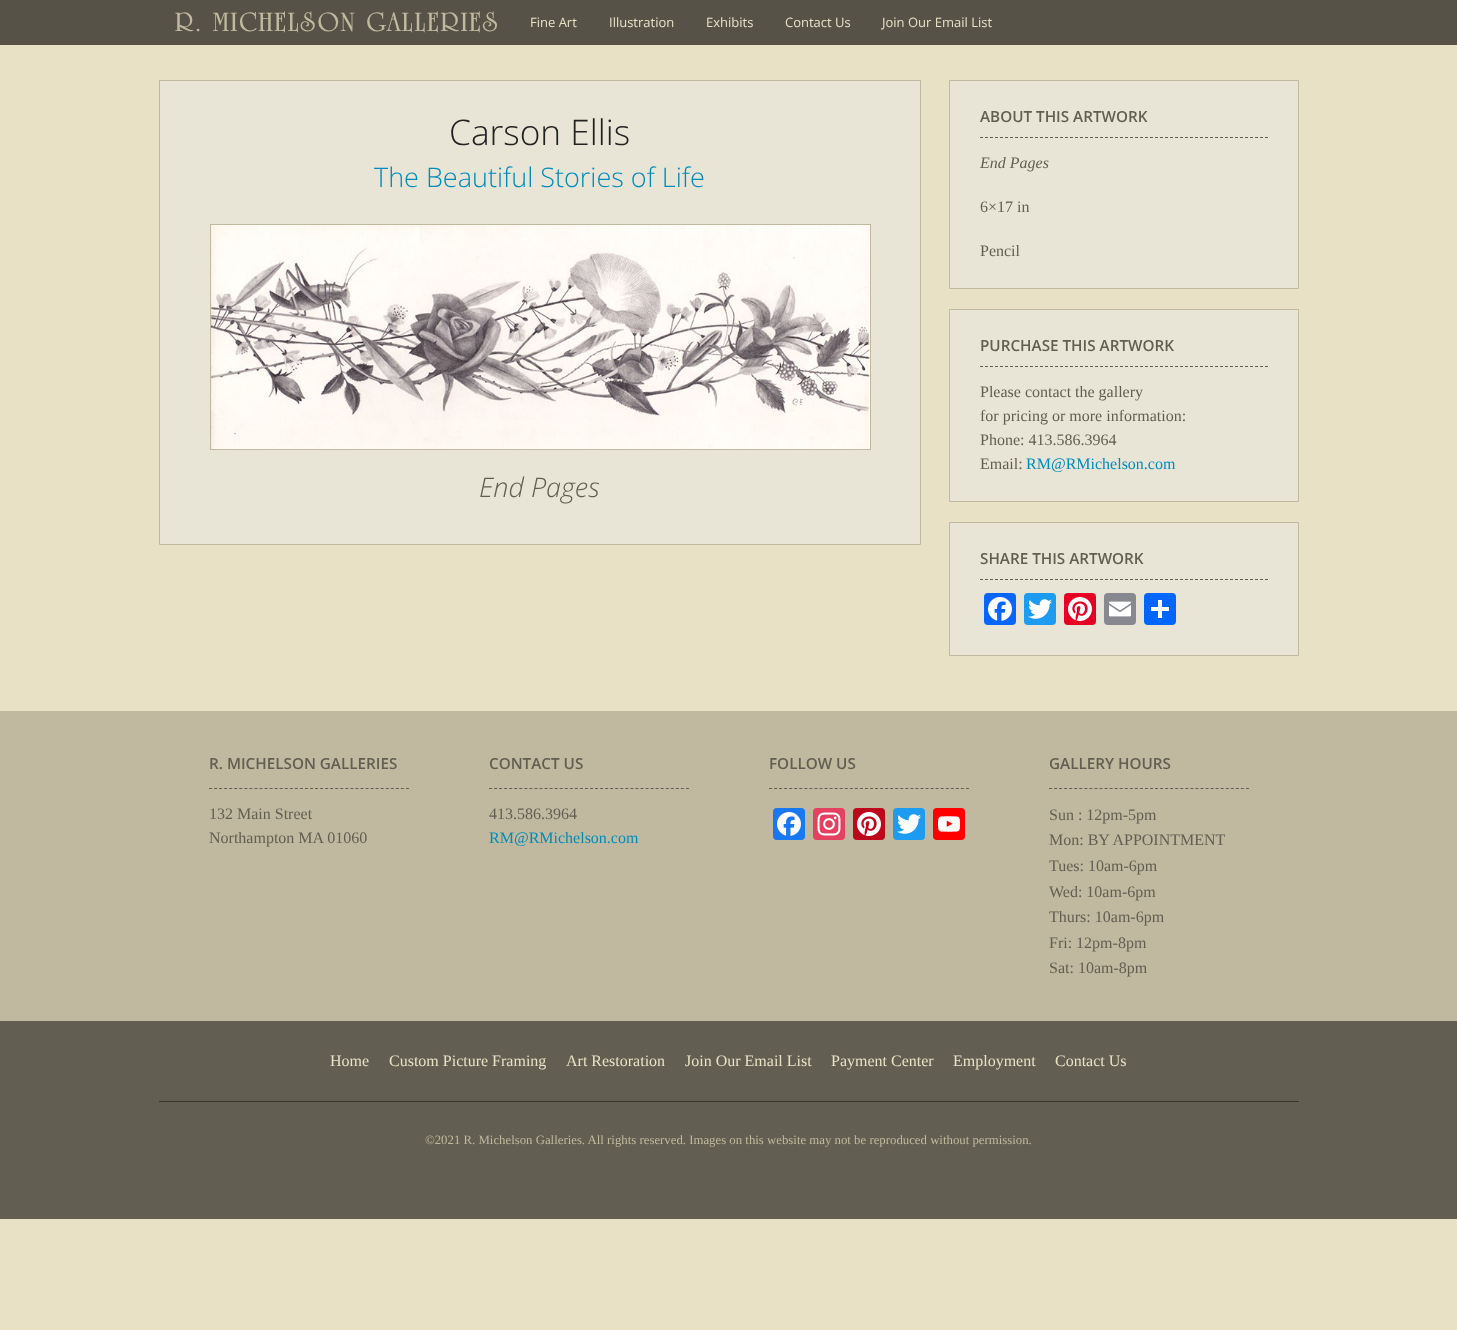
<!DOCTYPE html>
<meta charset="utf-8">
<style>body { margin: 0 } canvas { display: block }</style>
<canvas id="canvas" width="1457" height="1330"></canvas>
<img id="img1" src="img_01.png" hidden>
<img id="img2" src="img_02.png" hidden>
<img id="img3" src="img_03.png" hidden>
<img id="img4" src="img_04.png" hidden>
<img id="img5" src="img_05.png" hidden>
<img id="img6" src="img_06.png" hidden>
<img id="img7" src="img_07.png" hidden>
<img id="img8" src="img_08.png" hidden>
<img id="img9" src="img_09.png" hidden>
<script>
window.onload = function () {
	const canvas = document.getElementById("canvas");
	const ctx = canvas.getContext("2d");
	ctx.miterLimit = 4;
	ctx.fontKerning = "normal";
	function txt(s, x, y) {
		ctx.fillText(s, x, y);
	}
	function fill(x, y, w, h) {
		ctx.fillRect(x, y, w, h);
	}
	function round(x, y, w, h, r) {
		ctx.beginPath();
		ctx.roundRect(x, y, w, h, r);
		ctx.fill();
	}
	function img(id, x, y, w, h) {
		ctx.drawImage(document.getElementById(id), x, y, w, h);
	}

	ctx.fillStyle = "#E8E1C6";
	fill(0, 0, 1457, 1330);
	ctx.fillStyle = "#565247";
	fill(0, 0, 1457, 45);
	ctx.fillStyle = "#E8E5D7";
	ctx.beginPath();
	ctx.rect(159.5, 80.5, 761, 464);
	ctx.fill();
	ctx.strokeStyle = "#C0B99F";
	ctx.stroke();
	ctx.strokeRect(210.5, 224.5, 660, 225);
	img("img1", 211, 225, 659, 224);
	ctx.beginPath();
	ctx.rect(949.5, 80.5, 349, 208);
	ctx.fill();
	ctx.stroke();
	ctx.beginPath();
	ctx.moveTo(980, 137.5);
	ctx.lineTo(1268, 137.5);
	ctx.strokeStyle = "#625E51";
	ctx.setLineDash([3, 2]);
	ctx.stroke();
	ctx.beginPath();
	ctx.rect(949.5, 309.5, 349, 192);
	ctx.fill();
	ctx.strokeStyle = "#C0B99F";
	ctx.setLineDash([]);
	ctx.stroke();
	ctx.beginPath();
	ctx.moveTo(980, 366.5);
	ctx.lineTo(1268, 366.5);
	ctx.strokeStyle = "#625E51";
	ctx.setLineDash([3, 2]);
	ctx.stroke();
	ctx.beginPath();
	ctx.rect(949.5, 522.5, 349, 133);
	ctx.fill();
	ctx.strokeStyle = "#C0B99F";
	ctx.setLineDash([]);
	ctx.stroke();
	ctx.beginPath();
	ctx.moveTo(980, 579.5);
	ctx.lineTo(1268, 579.5);
	ctx.strokeStyle = "#625E51";
	ctx.setLineDash([3, 2]);
	ctx.stroke();
	ctx.fillStyle = "#0866FF";
	round(984, 593, 32, 32, 4);
	img("img2", 988, 597, 24, 24);
	ctx.fillStyle = "#1D9BF0";
	round(1024, 593, 32, 32, 4);
	img("img3", 1028, 599, 24, 20);
	ctx.fillStyle = "#E60023";
	round(1064, 593, 32, 32, 4);
	img("img4", 1068, 597, 24, 24);
	ctx.fillStyle = "#888990";
	round(1104, 593, 32, 32, 4);
	img("img5", 1109, 601, 22, 16);
	ctx.fillStyle = "#0166FF";
	round(1144, 593, 32, 32, 4);
	ctx.fillStyle = "#FFFFFF";
	fill(1158, 600, 4, 18);
	fill(1151, 607, 18, 4);
	ctx.fillStyle = "#C0B99F";
	fill(0, 711, 1457, 310);
	ctx.beginPath();
	ctx.moveTo(209, 788.5);
	ctx.lineTo(409, 788.5);
	ctx.setLineDash([3, 2.05]);
	ctx.stroke();
	ctx.beginPath();
	ctx.moveTo(489, 788.5);
	ctx.lineTo(689, 788.5);
	ctx.stroke();
	ctx.beginPath();
	ctx.moveTo(769, 788.5);
	ctx.lineTo(969, 788.5);
	ctx.stroke();
	ctx.fillStyle = "#1877F2";
	round(773, 808, 32, 32, 4);
	img("img6", 777, 812, 24, 24);
	ctx.fillStyle = "#E4405F";
	round(813, 808, 32, 32, 4);
	img("img7", 817, 812, 24, 24);
	ctx.fillStyle = "#BD081C";
	round(853, 808, 32, 32, 4);
	img("img8", 857, 812, 24, 24);
	ctx.fillStyle = "#1D9BF0";
	round(893, 808, 32, 32, 4);
	img("img3", 897, 814, 24, 20);
	ctx.fillStyle = "#FF0000";
	round(933, 808, 32, 32, 4);
	img("img9", 938, 816, 22, 16);
	ctx.beginPath();
	ctx.moveTo(1049, 788.5);
	ctx.lineTo(1249, 788.5);
	ctx.stroke();
	ctx.fillStyle = "#625E51";
	fill(0, 1021, 1457, 198);
	ctx.fillStyle = "#38362E";
	fill(159, 1101, 1140, 1);
	ctx.letterSpacing = "1.4px";
	ctx.font = "bold 28.75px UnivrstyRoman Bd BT";
	ctx.fillStyle = "#C0B99F";
	txt("R. MICHELSON GALLERIES", 175, 31);
	ctx.letterSpacing = "0px";
	ctx.font = "13px Open Sans";
	ctx.fillStyle = "#E8E1C6";
	txt("Fine Art", 530, 27);
	txt("Illustration", 609, 27);
	txt("Exhibits", 706, 27);
	txt("Contact Us", 785, 27);
	txt("Join Our Email List", 882, 27);
	ctx.font = "300 35.25px Open Sans";
	ctx.fillStyle = "#222222";
	txt("Carson Ellis", 449, 145);
	ctx.font = "300 27px Open Sans";
	ctx.fillStyle = "#008CBA";
	txt("The Beautiful Stories of Life", 374, 187);
	ctx.font = "italic 300 27px Open Sans";
	ctx.fillStyle = "#625E51";
	txt("End Pages", 479, 497);
	ctx.font = "600 15.25px Open Sans";
	txt("ABOUT THIS ARTWORK", 980, 122);
	ctx.font = "italic 16px Liberation Serif";
	txt("End Pages", 980, 168);
	ctx.font = "16px Liberation Serif";
	txt("6×17 in", 980, 212);
	txt("Pencil", 980, 256);
	ctx.font = "600 15.25px Open Sans";
	txt("PURCHASE THIS ARTWORK", 980, 351);
	ctx.font = "16px Liberation Serif";
	txt("Please contact the gallery", 980, 397);
	txt("for pricing or more information:", 980, 421);
	txt("Phone: 413.586.3964", 980, 445);
	txt("Email:", 980, 469);
	ctx.fillStyle = "#008CBA";
	txt("RM@RMichelson.com", 1026, 469);
	ctx.font = "600 15.25px Open Sans";
	ctx.fillStyle = "#625E51";
	txt("SHARE THIS ARTWORK", 980, 564);
	txt("R. MICHELSON GALLERIES", 209, 769);
	ctx.font = "16px Liberation Serif";
	txt("132 Main Street", 209, 819);
	txt("Northampton MA 01060", 209, 843);
	ctx.font = "600 15.25px Open Sans";
	txt("CONTACT US", 489, 769);
	ctx.font = "16px Liberation Serif";
	txt("413.586.3964", 489, 819);
	ctx.fillStyle = "#008CBA";
	txt("RM@RMichelson.com", 489, 843);
	ctx.font = "600 15.25px Open Sans";
	ctx.fillStyle = "#625E51";
	txt("FOLLOW US", 769, 769);
	txt("GALLERY HOURS", 1049, 769);
	ctx.font = "16px Liberation Serif";
	txt("Sun : 12pm-5pm", 1049, 820);
	txt("Mon: BY APPOINTMENT", 1049, 845);
	txt("Tues: 10am-6pm", 1049, 871);
	txt("Wed: 10am-6pm", 1049, 897);
	txt("Thurs: 10am-6pm", 1049, 922);
	txt("Fri: 12pm-8pm", 1049, 948);
	txt("Sat: 10am-8pm", 1049, 973);
	ctx.fillStyle = "#E8E1C6";
	txt("Home", 330, 1066);
	txt("Custom Picture Framing", 389, 1066);
	txt("Art Restoration", 566, 1066);
	txt("Join Our Email List", 685, 1066);
	txt("Payment Center", 831, 1066);
	txt("Employment", 953, 1066);
	txt("Contact Us", 1055, 1066);
	ctx.font = "12.8px Liberation Serif";
	ctx.fillStyle = "#C0B99F";
	txt("©2021 R. Michelson Galleries. All rights reserved. Images on this website may not be reproduced without permission.", 425, 1144);
};
</script>
